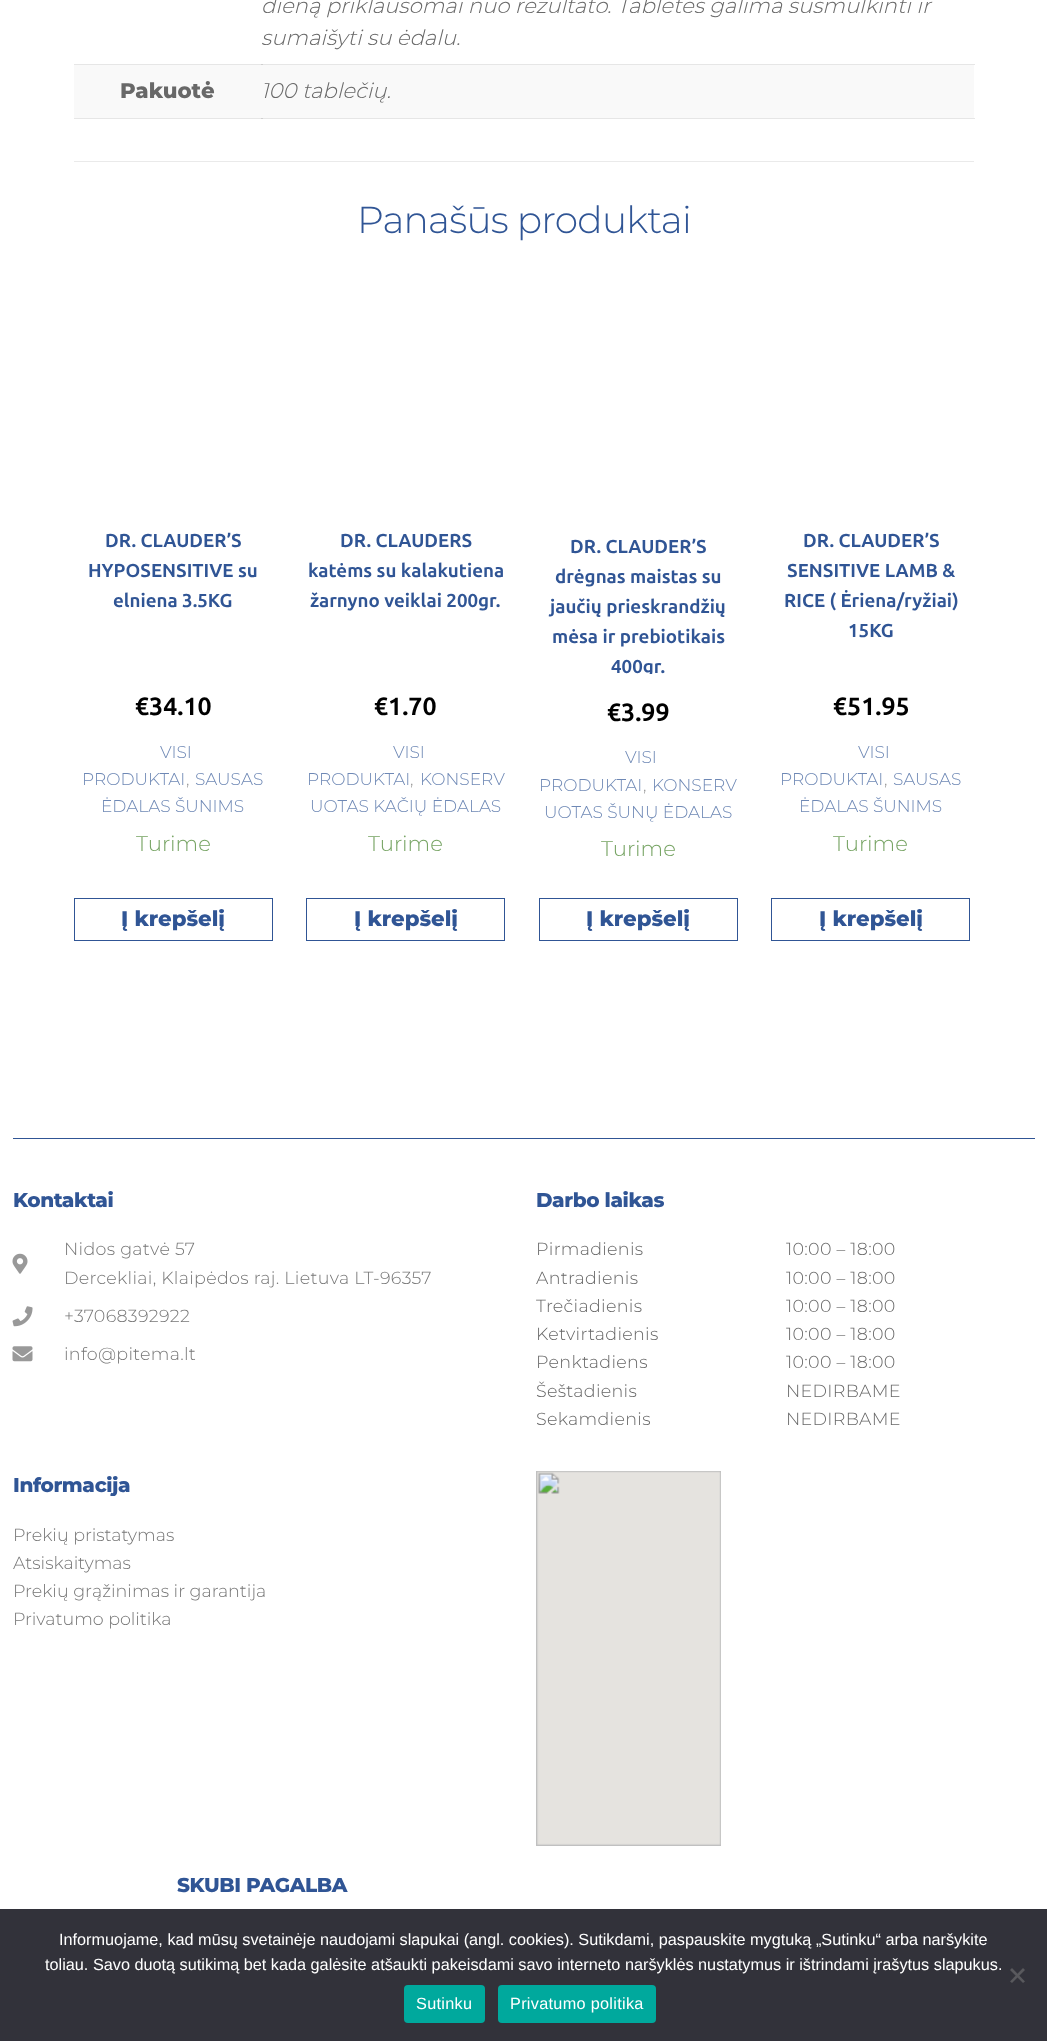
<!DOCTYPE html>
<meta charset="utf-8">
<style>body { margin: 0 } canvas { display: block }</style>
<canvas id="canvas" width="1047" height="2041"></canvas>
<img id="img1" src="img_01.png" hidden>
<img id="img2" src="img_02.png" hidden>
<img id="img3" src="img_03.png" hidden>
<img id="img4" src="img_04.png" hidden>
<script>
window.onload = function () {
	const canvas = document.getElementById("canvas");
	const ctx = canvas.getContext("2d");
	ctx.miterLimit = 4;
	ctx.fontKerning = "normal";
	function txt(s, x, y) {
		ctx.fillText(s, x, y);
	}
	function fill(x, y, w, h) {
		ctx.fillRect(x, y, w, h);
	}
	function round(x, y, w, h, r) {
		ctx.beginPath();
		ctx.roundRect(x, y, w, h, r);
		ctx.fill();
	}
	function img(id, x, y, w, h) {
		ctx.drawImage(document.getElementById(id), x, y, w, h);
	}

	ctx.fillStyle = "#FFFFFF";
	fill(0, 0, 1047, 2041);
	ctx.fillStyle = "#E6E6E6";
	fill(74, 64, 901, 1);
	fill(74, 118, 901, 1);
	ctx.fillStyle = "#CFCFCF";
	fill(261, 64, 2, 1);
	ctx.fillStyle = "#F9F9F9";
	fill(74, 65, 900, 53);
	ctx.fillStyle = "#CFCFCF";
	fill(261, 118, 2, 1);
	ctx.fillStyle = "#EAEAEA";
	fill(74, 161, 900, 1);
	ctx.strokeStyle = "#305595";
	ctx.strokeRect(74.5, 898.5, 198, 42);
	ctx.strokeRect(306.5, 898.5, 198, 42);
	ctx.strokeRect(539.5, 898.5, 198, 42);
	ctx.strokeRect(771.5, 898.5, 198, 42);
	ctx.fillStyle = "#305595";
	fill(13, 1138, 1022, 1);
	img("img1", 12, 1253, 16, 21);
	img("img2", 12, 1306, 21, 21);
	img("img3", 12, 1346, 21, 16);
	img("img4", 536, 1471, 185, 375);
	ctx.fillStyle = "#32323A";
	fill(0, 1909, 1047, 132);
	ctx.fillStyle = "#59595D";
	ctx.beginPath();
	ctx.moveTo(1023, 1968);
	ctx.lineTo(1025, 1970);
	ctx.lineTo(1012, 1983);
	ctx.lineTo(1010, 1981.5);
	ctx.closePath();
	ctx.fill();
	ctx.beginPath();
	ctx.moveTo(1010, 1970);
	ctx.lineTo(1012, 1968);
	ctx.lineTo(1025, 1981.5);
	ctx.lineTo(1023, 1983);
	ctx.closePath();
	ctx.fill();
	ctx.fillStyle = "#00A99D";
	round(404, 1985, 81, 38, 4);
	round(498, 1985, 158, 38, 4);
	ctx.font = "italic 300 21.25px Montserrat";
	ctx.fillStyle = "#686868";
	txt("dieną priklausomai nuo rezultato. Tabletes galima susmulkinti ir", 261, 13);
	txt("sumaišyti su ėdalu.", 261, 45);
	ctx.font = "800 21.25px Montserrat";
	txt("Pakuotė", 120, 98);
	ctx.font = "italic 300 21.25px Montserrat";
	txt("100 tablečių.", 261, 98);
	ctx.letterSpacing = "-0.75px";
	ctx.font = "300 37.5px Montserrat";
	ctx.fillStyle = "#305595";
	txt("Panašūs produktai", 357, 233);
	ctx.letterSpacing = "0px";
	ctx.font = "bold 18.75px Ubuntu";
	txt("DR. CLAUDER’S", 105, 547);
	txt("HYPOSENSITIVE su", 88, 577);
	txt("elniena 3.5KG", 113, 607);
	ctx.font = "bold 25px Ubuntu";
	ctx.fillStyle = "#000000";
	txt("€34.10", 135, 715);
	ctx.font = "300 17px Montserrat";
	ctx.fillStyle = "#6E88B5";
	txt("VISI", 160, 758);
	txt("PRODUKTAI", 82, 785);
	ctx.fillStyle = "#959595";
	txt(",", 186, 785);
	ctx.fillStyle = "#6E88B5";
	txt("SAUSAS", 195, 785);
	txt("ĖDALAS ŠUNIMS", 101, 812);
	ctx.font = "300 21.25px Montserrat";
	ctx.fillStyle = "#77A464";
	txt("Turime", 136, 851);
	ctx.font = "800 21.25px Montserrat";
	ctx.fillStyle = "#305595";
	txt("Į krepšelį", 121, 926);
	ctx.font = "bold 18.75px Ubuntu";
	txt("DR. CLAUDERS", 340, 547);
	txt("katėms su kalakutiena", 308, 577);
	txt("žarnyno veiklai 200gr.", 310, 607);
	ctx.font = "bold 25px Ubuntu";
	ctx.fillStyle = "#000000";
	txt("€1.70", 374, 715);
	ctx.font = "300 17px Montserrat";
	ctx.fillStyle = "#6E88B5";
	txt("VISI", 393, 758);
	txt("PRODUKTAI", 307, 785);
	ctx.fillStyle = "#959595";
	txt(",", 410, 785);
	ctx.fillStyle = "#6E88B5";
	txt("KONSERV", 420, 785);
	txt("UOTAS KAČIŲ ĖDALAS", 310, 812);
	ctx.font = "300 21.25px Montserrat";
	ctx.fillStyle = "#77A464";
	txt("Turime", 368, 851);
	ctx.font = "800 21.25px Montserrat";
	ctx.fillStyle = "#305595";
	txt("Į krepšelį", 354, 926);
	ctx.font = "bold 18.75px Ubuntu";
	txt("DR. CLAUDER’S", 570, 553);
	txt("drėgnas maistas su", 555, 583);
	txt("jaučių prieskrandžių", 550, 613);
	txt("mėsa ir prebiotikais", 552, 643);
	ctx.save();
	ctx.beginPath();
	ctx.rect(539, 523, 199, 151);
	ctx.clip();
	txt("400gr.", 611, 673);
	ctx.restore();
	ctx.font = "bold 25px Ubuntu";
	ctx.fillStyle = "#000000";
	txt("€3.99", 607, 721);
	ctx.font = "300 17px Montserrat";
	ctx.fillStyle = "#6E88B5";
	txt("VISI", 625, 763);
	txt("PRODUKTAI", 539, 791);
	ctx.fillStyle = "#959595";
	txt(",", 643, 791);
	ctx.fillStyle = "#6E88B5";
	txt("KONSERV", 652, 791);
	txt("UOTAS ŠUNŲ ĖDALAS", 544, 818);
	ctx.font = "300 21.25px Montserrat";
	ctx.fillStyle = "#77A464";
	txt("Turime", 601, 856);
	ctx.font = "800 21.25px Montserrat";
	ctx.fillStyle = "#305595";
	txt("Į krepšelį", 586, 926);
	ctx.font = "bold 18.75px Ubuntu";
	txt("DR. CLAUDER’S", 803, 547);
	txt("SENSITIVE LAMB &", 787, 577);
	txt("RICE ( Ėriena/ryžiai)", 784, 607);
	txt("15KG", 848, 637);
	ctx.font = "bold 25px Ubuntu";
	ctx.fillStyle = "#000000";
	txt("€51.95", 833, 715);
	ctx.font = "300 17px Montserrat";
	ctx.fillStyle = "#6E88B5";
	txt("VISI", 858, 758);
	txt("PRODUKTAI", 780, 785);
	ctx.fillStyle = "#959595";
	txt(",", 884, 785);
	ctx.fillStyle = "#6E88B5";
	txt("SAUSAS", 893, 785);
	txt("ĖDALAS ŠUNIMS", 799, 812);
	ctx.font = "300 21.25px Montserrat";
	ctx.fillStyle = "#77A464";
	txt("Turime", 833, 851);
	ctx.font = "800 21.25px Montserrat";
	ctx.fillStyle = "#305595";
	txt("Į krepšelį", 819, 926);
	ctx.letterSpacing = "-0.4px";
	ctx.font = "800 20px Montserrat";
	txt("Kontaktai", 13, 1207);
	ctx.letterSpacing = "0.3px";
	ctx.font = "300 17.5px Montserrat";
	ctx.fillStyle = "#777777";
	txt("Nidos gatvė 57", 64, 1255);
	txt("Dercekliai, Klaipėdos raj. Lietuva LT-96357", 64, 1284);
	txt("+37068392922", 64, 1322);
	txt("info@pitema.lt", 64, 1360);
	ctx.letterSpacing = "-0.4px";
	ctx.font = "800 20px Montserrat";
	ctx.fillStyle = "#305595";
	txt("Darbo laikas", 536, 1207);
	ctx.letterSpacing = "0.3px";
	ctx.font = "300 17.5px Montserrat";
	ctx.fillStyle = "#686868";
	txt("Pirmadienis", 536, 1255);
	txt("Antradienis", 536, 1284);
	txt("Trečiadienis", 536, 1312);
	txt("Ketvirtadienis", 536, 1340);
	txt("Penktadiens", 536, 1368);
	txt("Šeštadienis", 536, 1397);
	txt("Sekamdienis", 536, 1425);
	txt("10:00 – 18:00", 786, 1255);
	txt("10:00 – 18:00", 786, 1284);
	txt("10:00 – 18:00", 786, 1312);
	txt("10:00 – 18:00", 786, 1340);
	txt("10:00 – 18:00", 786, 1368);
	txt("NEDIRBAME", 786, 1397);
	txt("NEDIRBAME", 786, 1425);
	ctx.letterSpacing = "-0.4px";
	ctx.font = "800 20px Montserrat";
	ctx.fillStyle = "#305595";
	txt("Informacija", 13, 1492);
	ctx.letterSpacing = "0px";
	ctx.font = "300 17.5px Montserrat";
	ctx.fillStyle = "#777777";
	txt("Prekių pristatymas", 13, 1541);
	txt("Atsiskaitymas", 13, 1569);
	txt("Prekių grąžinimas ir garantija", 13, 1597);
	txt("Privatumo politika", 13, 1625);
	ctx.letterSpacing = "-0.4px";
	ctx.font = "800 20px Montserrat";
	ctx.fillStyle = "#305595";
	txt("SKUBI PAGALBA", 177, 1892);
	ctx.letterSpacing = "0px";
	ctx.font = "16.25px Liberation Sans";
	ctx.fillStyle = "#FFFFFF";
	txt("Informuojame, kad mūsų svetainėje naudojami slapukai (angl. cookies). Sutikdami, paspauskite mygtuką „Sutinku“ arba naršykite", 59, 1945);
	txt("toliau. Savo duotą sutikimą bet kada galėsite atšaukti pakeisdami savo interneto naršyklės nustatymus ir ištrindami įrašytus slapukus.", 45, 1970);
	ctx.letterSpacing = "0.3px";
	txt("Sutinku", 416, 2009);
	txt("Privatumo politika", 510, 2009);
};
</script>
